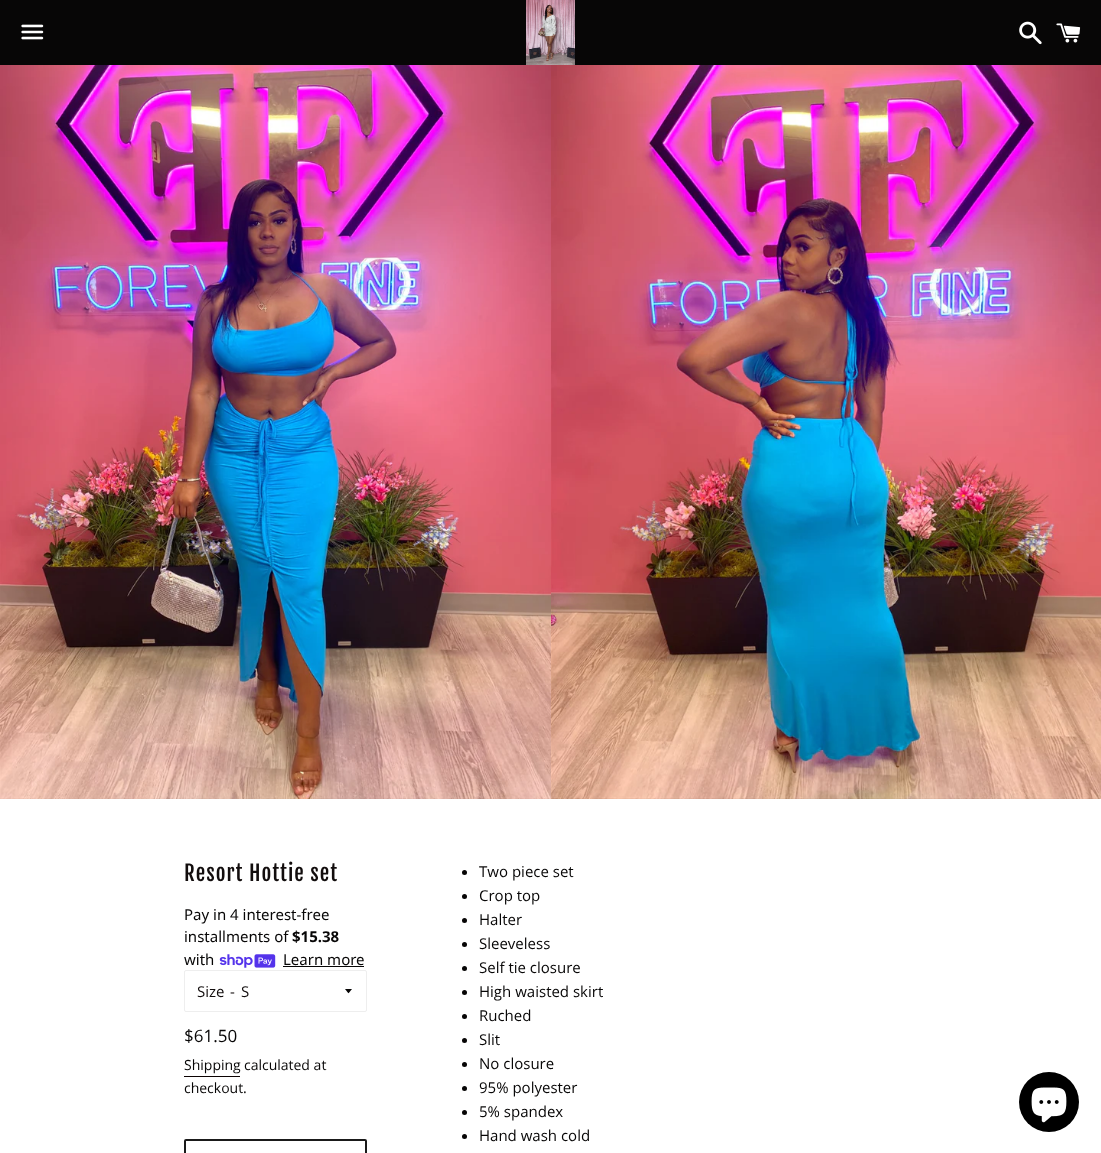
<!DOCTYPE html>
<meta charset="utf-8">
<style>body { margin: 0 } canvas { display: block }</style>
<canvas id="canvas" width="1101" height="1153"></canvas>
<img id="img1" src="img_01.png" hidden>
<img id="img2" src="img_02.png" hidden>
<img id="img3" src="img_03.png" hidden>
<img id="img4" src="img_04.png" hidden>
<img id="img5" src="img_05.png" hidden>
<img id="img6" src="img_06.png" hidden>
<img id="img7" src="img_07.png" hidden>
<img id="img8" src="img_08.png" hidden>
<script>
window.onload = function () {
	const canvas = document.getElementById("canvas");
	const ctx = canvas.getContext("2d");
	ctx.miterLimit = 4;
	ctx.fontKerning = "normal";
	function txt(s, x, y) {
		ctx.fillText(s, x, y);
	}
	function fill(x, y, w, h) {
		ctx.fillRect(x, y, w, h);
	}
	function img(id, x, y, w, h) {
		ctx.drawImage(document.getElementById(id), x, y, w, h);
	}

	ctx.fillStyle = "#FFFFFF";
	fill(0, 0, 1101, 1153);
	ctx.fillStyle = "#070606";
	fill(0, 0, 1101, 65);
	img("img1", 21, 24, 23, 16);
	img("img2", 526, 0, 49, 65);
	img("img3", 1019, 21, 23, 24);
	img("img4", 1056, 23, 25, 20);
	img("img5", 0, 65, 551, 734);
	img("img6", 551, 65, 550, 734);
	img("img7", 219, 954, 57, 14);
	fill(283, 966, 81, 1);
	ctx.beginPath();
	ctx.roundRect(184.5, 970.5, 182, 41, 1.5);
	ctx.strokeStyle = "#EEEEEE";
	ctx.stroke();
	ctx.beginPath();
	ctx.moveTo(345, 989);
	ctx.bezierCurveTo(349.5, 994.5, 347.5, 994.5, 352, 989);
	ctx.closePath();
	ctx.fill();
	ctx.fillStyle = "#0B0202";
	fill(184, 1076, 56, 1);
	ctx.beginPath();
	ctx.roundRect(185, 1140, 181, 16, 1);
	ctx.strokeStyle = "#1A1A1A";
	ctx.lineWidth = 2;
	ctx.stroke();
	ctx.fillStyle = "#070606";
	ctx.beginPath();
	ctx.arc(464.5, 872.5, 2.5, 0, Math.PI * 2);
	ctx.fill();
	ctx.beginPath();
	ctx.arc(464.5, 896.5, 2.5, 0, Math.PI * 2);
	ctx.fill();
	ctx.beginPath();
	ctx.arc(464.5, 920.5, 2.5, 0, Math.PI * 2);
	ctx.fill();
	ctx.beginPath();
	ctx.arc(464.5, 944.5, 2.5, 0, Math.PI * 2);
	ctx.fill();
	ctx.beginPath();
	ctx.arc(464.5, 968.5, 2.5, 0, Math.PI * 2);
	ctx.fill();
	ctx.beginPath();
	ctx.arc(464.5, 992.5, 2.5, 0, Math.PI * 2);
	ctx.fill();
	ctx.beginPath();
	ctx.arc(464.5, 1016.5, 2.5, 0, Math.PI * 2);
	ctx.fill();
	ctx.beginPath();
	ctx.arc(464.5, 1040.5, 2.5, 0, Math.PI * 2);
	ctx.fill();
	ctx.beginPath();
	ctx.arc(464.5, 1064.5, 2.5, 0, Math.PI * 2);
	ctx.fill();
	ctx.beginPath();
	ctx.arc(464.5, 1088.5, 2.5, 0, Math.PI * 2);
	ctx.fill();
	ctx.beginPath();
	ctx.arc(464.5, 1112.5, 2.5, 0, Math.PI * 2);
	ctx.fill();
	ctx.beginPath();
	ctx.arc(464.5, 1136.5, 2.5, 0, Math.PI * 2);
	ctx.fill();
	ctx.fillStyle = "#000000";
	ctx.beginPath();
	ctx.arc(1049, 1102, 30, 0, Math.PI * 2);
	ctx.fill();
	img("img8", 1031, 1087, 36, 36);
	ctx.letterSpacing = "1px";
	ctx.font = "21px Fjalla One";
	ctx.fillStyle = "#120D0D";
	txt("Resort Hottie set", 184, 881);
	ctx.letterSpacing = "0px";
	ctx.font = "15px Noto Sans";
	ctx.fillStyle = "#070606";
	txt("Pay in 4 interest-free", 184, 920);
	txt("installments of", 184, 942);
	ctx.font = "bold 15px Noto Sans";
	txt("$15.38", 292, 942);
	ctx.font = "15px Noto Sans";
	txt("with", 184, 965);
	txt("Learn more", 283, 965);
	ctx.font = "15px Open Sans";
	ctx.fillStyle = "#120D0D";
	txt("Size", 197, 997);
	txt("-", 230, 997);
	txt("S", 241, 997);
	ctx.font = "17px Open Sans";
	ctx.fillStyle = "#070606";
	txt("$61.50", 184, 1042);
	ctx.font = "14px Open Sans";
	txt("Shipping", 184, 1070);
	txt("calculated at", 244, 1070);
	txt("checkout.", 184, 1093);
	ctx.font = "15px Open Sans";
	txt("Two piece set", 479, 877);
	txt("Crop top", 479, 901);
	txt("Halter", 479, 925);
	txt("Sleeveless", 479, 949);
	txt("Self tie closure", 479, 973);
	txt("High waisted skirt", 479, 997);
	txt("Ruched", 479, 1021);
	txt("Slit", 479, 1045);
	txt("No closure", 479, 1069);
	txt("95% polyester", 479, 1093);
	txt("5% spandex", 479, 1117);
	txt("Hand wash cold", 479, 1141);
};
</script>
